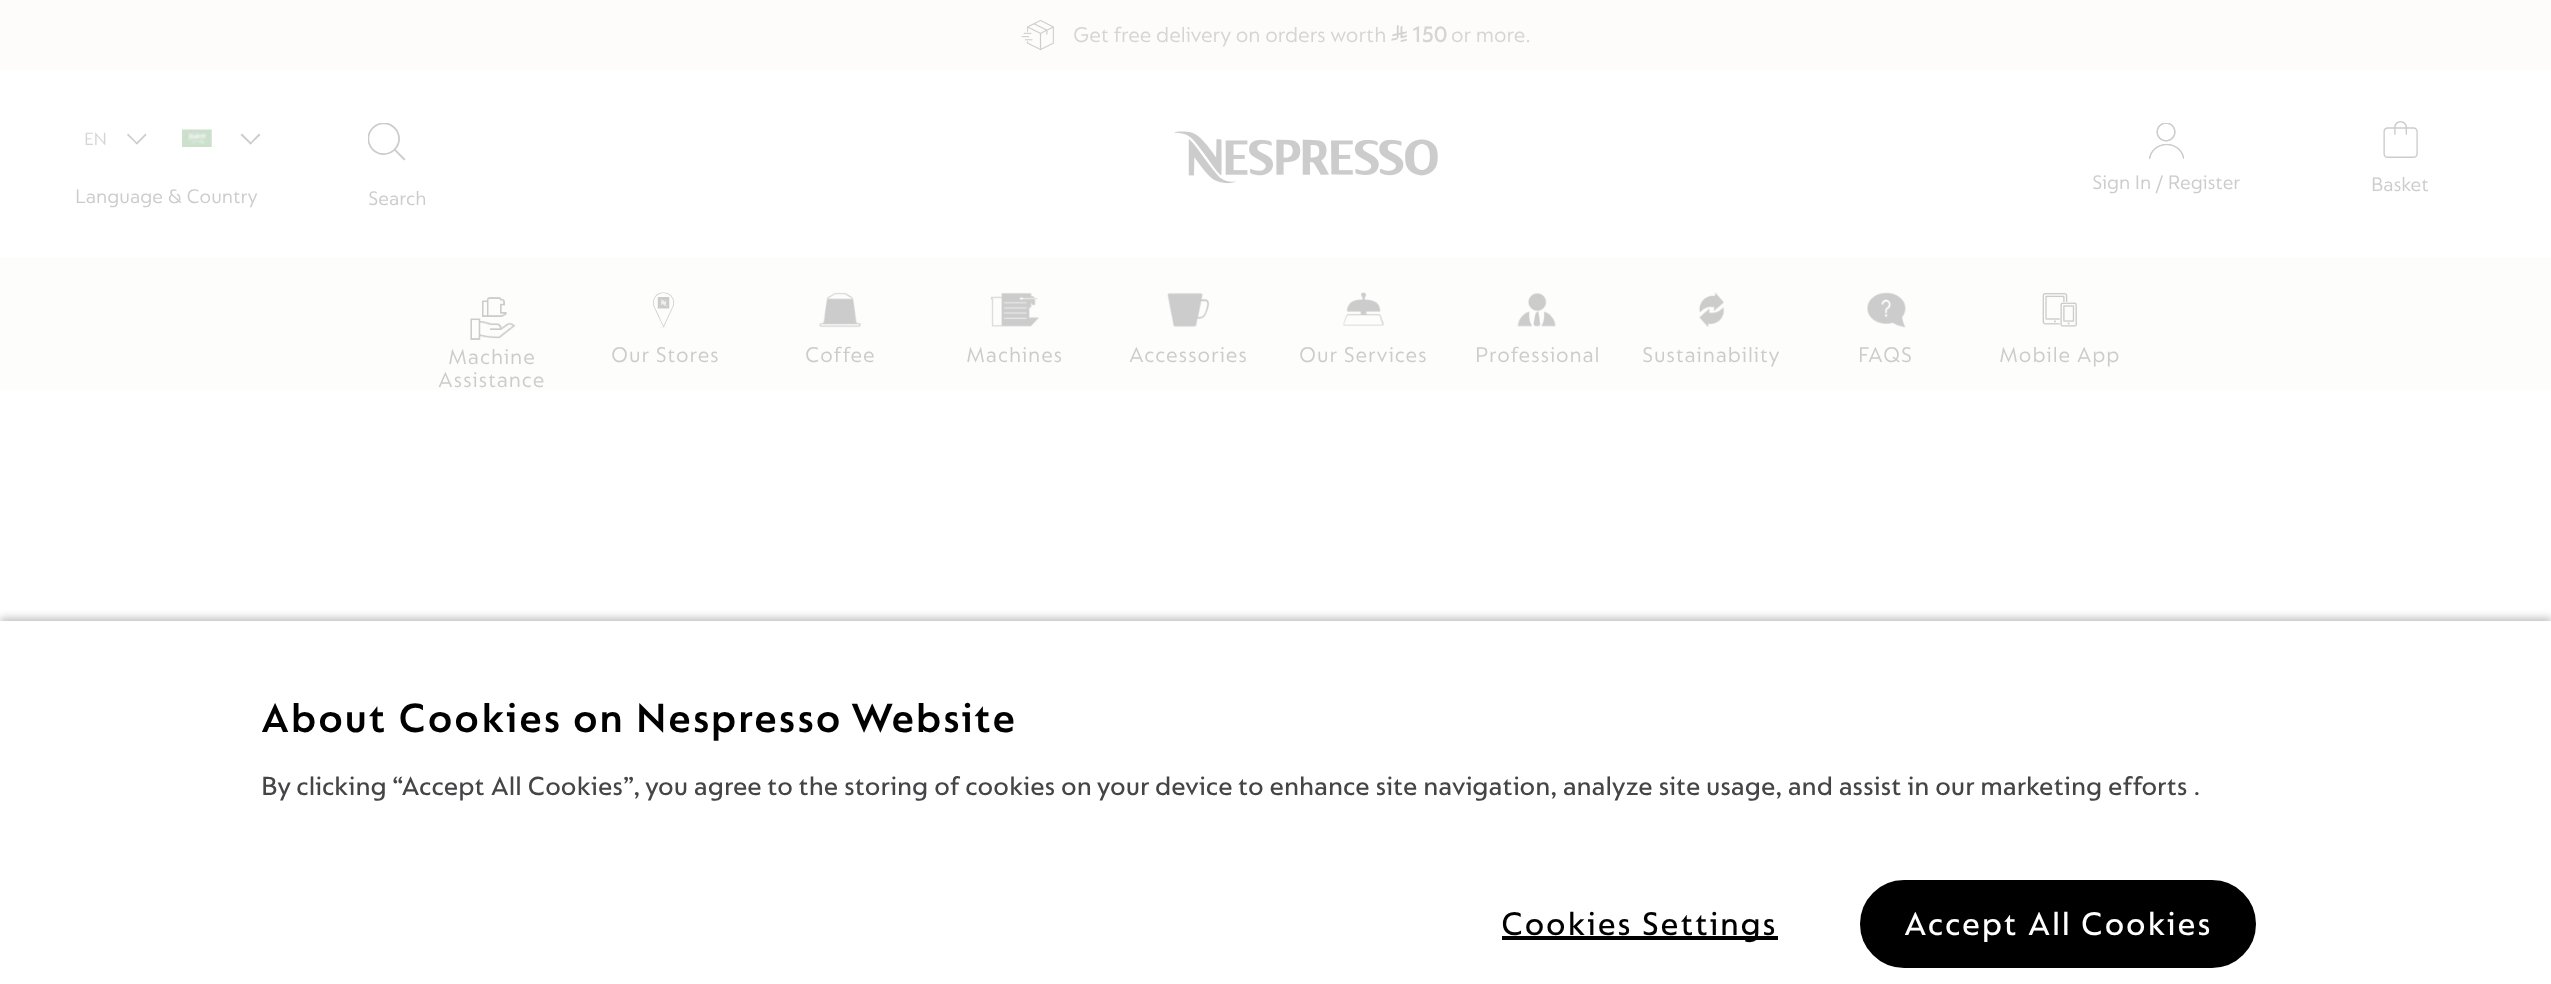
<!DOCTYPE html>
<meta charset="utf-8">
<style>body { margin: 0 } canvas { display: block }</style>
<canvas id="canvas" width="2551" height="984"></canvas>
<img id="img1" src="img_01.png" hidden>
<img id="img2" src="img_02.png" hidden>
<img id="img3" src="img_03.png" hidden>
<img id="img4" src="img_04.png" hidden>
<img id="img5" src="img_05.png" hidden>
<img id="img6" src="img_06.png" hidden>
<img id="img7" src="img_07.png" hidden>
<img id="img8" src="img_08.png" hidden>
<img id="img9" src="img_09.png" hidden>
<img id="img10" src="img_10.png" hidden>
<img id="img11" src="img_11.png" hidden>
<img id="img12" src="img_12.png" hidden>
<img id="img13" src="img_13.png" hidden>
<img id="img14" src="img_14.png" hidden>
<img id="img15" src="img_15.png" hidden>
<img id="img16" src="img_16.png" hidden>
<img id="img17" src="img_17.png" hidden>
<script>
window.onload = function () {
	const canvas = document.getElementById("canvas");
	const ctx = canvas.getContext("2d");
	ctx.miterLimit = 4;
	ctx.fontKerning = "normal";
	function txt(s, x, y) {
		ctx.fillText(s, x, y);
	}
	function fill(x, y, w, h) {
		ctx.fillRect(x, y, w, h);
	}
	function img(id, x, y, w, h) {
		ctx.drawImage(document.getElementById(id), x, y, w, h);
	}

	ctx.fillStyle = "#FFFFFF";
	fill(0, 0, 2551, 984);
	ctx.fillStyle = "#FDFCFB";
	fill(0, 0, 2551, 70);
	img("img1", 1021, 19, 33, 32);
	img("img2", 1391, 25, 16, 17);
	ctx.fillStyle = "#CCCCCC";
	ctx.beginPath();
	ctx.moveTo(145.5, 133.5);
	ctx.lineTo(146.5, 135);
	ctx.lineTo(137, 144.5);
	ctx.lineTo(135.5, 143.5);
	ctx.closePath();
	ctx.fill();
	ctx.beginPath();
	ctx.moveTo(128, 133.5);
	ctx.lineTo(138, 143.5);
	ctx.lineTo(137, 144.5);
	ctx.lineTo(127, 135);
	ctx.closePath();
	ctx.fill();
	img("img3", 182, 129, 30, 18);
	ctx.beginPath();
	ctx.moveTo(259, 133.5);
	ctx.lineTo(260.5, 135);
	ctx.lineTo(250.5, 144.5);
	ctx.lineTo(249.5, 143.5);
	ctx.closePath();
	ctx.fill();
	ctx.beginPath();
	ctx.moveTo(242, 133.5);
	ctx.lineTo(252, 143.5);
	ctx.lineTo(250.5, 144.5);
	ctx.lineTo(240.5, 135);
	ctx.closePath();
	ctx.fill();
	img("img4", 1174, 131, 264, 53);
	img("img5", 2149, 123, 35, 36);
	img("img6", 2383, 121, 35, 37);
	img("img7", 368, 123, 38, 38);
	ctx.fillStyle = "#FDFDFC";
	fill(0, 257, 2551, 133);
	img("img8", 470, 297, 46, 43);
	img("img9", 653, 292, 22, 36);
	img("img10", 819, 292, 43, 36);
	img("img11", 990, 292, 50, 35);
	img("img12", 1167, 292, 43, 36);
	img("img13", 1342, 292, 42, 34);
	img("img14", 1517, 292, 39, 35);
	img("img15", 1699, 292, 26, 36);
	img("img16", 1867, 292, 39, 36);
	img("img17", 2042, 293, 35, 34);
	ctx.fillStyle = "rgba(0, 0, 0, 0.25)";
	ctx.filter = "blur(4.5px)";
	ctx.beginPath();
	ctx.rect(0, 618, 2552, 364);
	ctx.fill();
	ctx.filter = "none";
	ctx.fillStyle = "#FFFFFF";
	fill(0, 621, 2551, 363);
	ctx.fillStyle = "#000000";
	fill(1502, 936, 276, 4);
	ctx.beginPath();
	ctx.roundRect(1861, 881, 394, 86, 43);
	ctx.fill();
	ctx.strokeStyle = "#000000";
	ctx.lineWidth = 2;
	ctx.stroke();
	ctx.font = "22.75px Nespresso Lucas";
	ctx.fillStyle = "#D5D5D5";
	txt("Get free delivery on orders worth", 1073, 42);
	ctx.font = "bold 22.75px Nespresso Lucas";
	txt("150", 1412, 42);
	ctx.font = "22.75px Nespresso Lucas";
	txt("or more.", 1451, 42);
	ctx.font = "19px Nespresso Lucas";
	txt("EN", 84, 145);
	ctx.font = "21px Nespresso Lucas";
	ctx.fillStyle = "#CCCCCC";
	txt("Language & Country", 75, 203);
	txt("Sign In / Register", 2092, 189);
	txt("Basket", 2371, 191);
	txt("Search", 368, 205);
	ctx.letterSpacing = "0.9px";
	ctx.font = "22.75px Nespresso Lucas";
	txt("Machine", 448, 364);
	txt("Assistance", 438, 387);
	txt("Our Stores", 611, 362);
	txt("Coffee", 805, 362);
	txt("Machines", 966, 362);
	txt("Accessories", 1129, 362);
	txt("Our Services", 1299, 362);
	txt("Professional", 1475, 362);
	txt("Sustainability", 1642, 362);
	txt("FAQS", 1858, 362);
	txt("Mobile App", 1999, 362);
	ctx.letterSpacing = "1.75px";
	ctx.font = "600 43.75px Nespresso Lucas";
	ctx.fillStyle = "#000000";
	txt("About Cookies on Nespresso Website", 261, 732);
	ctx.letterSpacing = "0px";
	ctx.font = "500 28px Nespresso Lucas";
	ctx.fillStyle = "#454547";
	txt("By clicking “Accept All Cookies”, you agree to the storing of cookies on your device to enhance site navigation, analyze site usage, and assist in our marketing efforts .", 261, 795);
	ctx.letterSpacing = "1.75px";
	ctx.font = "500 35px Nespresso Lucas";
	ctx.fillStyle = "#000000";
	txt("Cookies Settings", 1501, 935);
	ctx.fillStyle = "#FFFFFF";
	txt("Accept All Cookies", 1904, 935);
};
</script>
